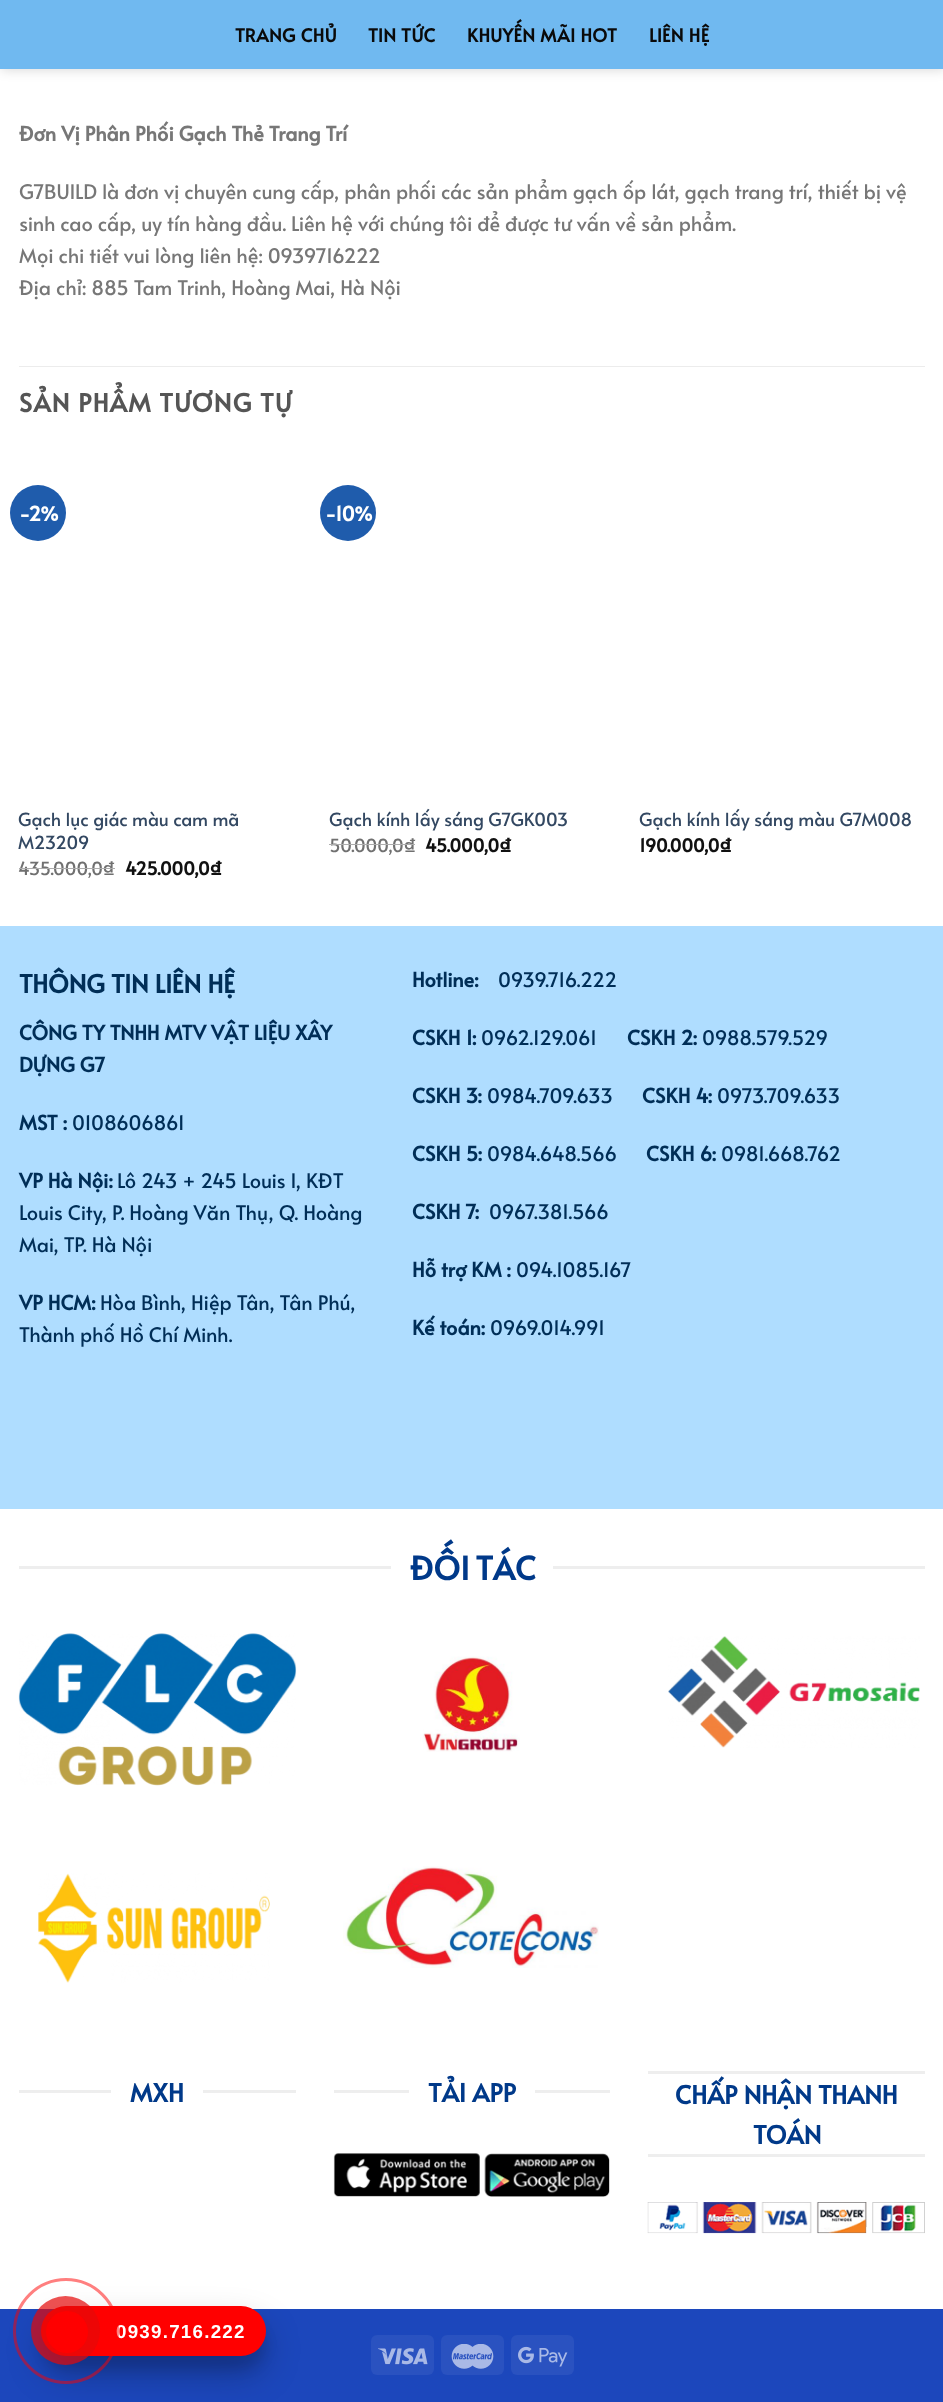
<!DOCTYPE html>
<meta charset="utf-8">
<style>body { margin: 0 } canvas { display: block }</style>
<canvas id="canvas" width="943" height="2402"></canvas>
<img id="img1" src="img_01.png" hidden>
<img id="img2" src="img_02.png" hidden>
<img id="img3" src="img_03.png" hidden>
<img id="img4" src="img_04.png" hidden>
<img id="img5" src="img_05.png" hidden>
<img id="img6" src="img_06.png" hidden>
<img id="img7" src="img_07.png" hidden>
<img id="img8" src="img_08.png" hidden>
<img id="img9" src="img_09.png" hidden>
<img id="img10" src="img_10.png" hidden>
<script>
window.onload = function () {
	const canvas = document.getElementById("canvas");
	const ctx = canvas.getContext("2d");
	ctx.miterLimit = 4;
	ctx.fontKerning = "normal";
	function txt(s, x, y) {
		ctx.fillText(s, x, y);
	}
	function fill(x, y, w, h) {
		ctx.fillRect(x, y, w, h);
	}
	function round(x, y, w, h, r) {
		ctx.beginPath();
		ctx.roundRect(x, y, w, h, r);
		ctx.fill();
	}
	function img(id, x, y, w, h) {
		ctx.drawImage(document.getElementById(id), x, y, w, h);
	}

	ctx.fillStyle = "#FFFFFF";
	fill(0, 0, 943, 2402);
	ctx.fillStyle = "rgba(0, 0, 0, 0.15)";
	ctx.filter = "blur(6px)";
	ctx.beginPath();
	ctx.rect(1, 1, 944, 69);
	ctx.fill();
	ctx.filter = "none";
	ctx.fillStyle = "#70B9F0";
	fill(0, 0, 943, 69);
	ctx.fillStyle = "#ECECEC";
	fill(19, 366, 906, 1);
	ctx.fillStyle = "#1F5CAC";
	ctx.beginPath();
	ctx.arc(38, 513, 28, 0, Math.PI * 2);
	ctx.fill();
	ctx.beginPath();
	ctx.arc(348, 513, 28, 0, Math.PI * 2);
	ctx.fill();
	ctx.fillStyle = "#AFDDFF";
	fill(0, 926, 943, 583);
	ctx.fillStyle = "#EEEEEE";
	fill(19, 1566, 372, 3);
	fill(553, 1566, 372, 3);
	img("img1", 18, 1633, 279, 153);
	img("img2", 420, 1656, 100, 96);
	img("img3", 668, 1636, 252, 112);
	img("img4", 38, 1873, 232, 110);
	img("img5", 343, 1866, 256, 102);
	fill(19, 2090, 92, 3);
	fill(203, 2090, 93, 3);
	fill(334, 2090, 75, 3);
	fill(535, 2090, 75, 3);
	img("img6", 333, 2153, 277, 44);
	fill(648, 2071, 277, 3);
	fill(648, 2154, 277, 3);
	img("img7", 647, 2202, 278, 32);
	ctx.fillStyle = "#1C47BC";
	fill(0, 2309, 943, 93);
	ctx.fillStyle = "#2A52C0";
	round(371, 2335, 63, 40, 6);
	img("img8", 378, 2348, 50, 17);
	round(441, 2335, 63, 40, 6);
	img("img9", 451, 2344, 43, 25);
	round(511, 2335, 63, 40, 6);
	img("img10", 518, 2346, 50, 21);
	ctx.fillStyle = "rgba(0, 0, 0, 0.1)";
	ctx.filter = "blur(6px)";
	ctx.beginPath();
	ctx.roundRect(41, 2319, 225, 50, 25);
	ctx.fill();
	ctx.filter = "none";
	ctx.fillStyle = "rgba(0, 0, 0, 0.25)";
	ctx.filter = "blur(17.5px)";
	ctx.beginPath();
	ctx.roundRect(41, 2324, 225, 50, 25);
	ctx.fill();
	ctx.filter = "none";
	ctx.fillStyle = "#FF0000";
	round(41, 2306, 225, 50, 25);
	ctx.letterSpacing = "0.4px";
	ctx.font = "bold 18px Alata";
	ctx.fillStyle = "#0A0A0A";
	txt("TRANG CHỦ", 235, 42);
	txt("TIN TỨC", 368, 42);
	txt("KHUYẾN MÃI HOT", 467, 42);
	txt("LIÊN HỆ", 649, 42);
	ctx.letterSpacing = "0px";
	ctx.font = "bold 20px Alata";
	ctx.fillStyle = "#777777";
	txt("Đơn Vị Phân Phối Gạch Thẻ Trang Trí", 19, 141);
	ctx.font = "20px Alata";
	txt("G7BUILD là đơn vị chuyên cung cấp, phân phối các sản phẩm gạch ốp lát, gạch trang trí, thiết bị vệ", 19, 199);
	txt("sinh cao cấp, uy tín hàng đầu. Liên hệ với chúng tôi để được tư vấn về sản phẩm.", 19, 231);
	txt("Mọi chi tiết vui lòng liên hệ: 0939716222", 19, 263);
	txt("Địa chỉ: 885 Tam Trinh, Hoàng Mai, Hà Nội", 19, 295);
	ctx.letterSpacing = "1.25px";
	ctx.font = "bold 25px Alata";
	ctx.fillStyle = "#555555";
	txt("SẢN PHẨM TƯƠNG TỰ", 19, 412);
	ctx.letterSpacing = "0px";
	ctx.font = "bold 20px Alata";
	ctx.fillStyle = "#FFFFFF";
	txt("-2%", 19, 521);
	ctx.font = "18px Alata";
	ctx.fillStyle = "#334862";
	txt("Gạch lục giác màu cam mã", 18, 826);
	txt("M23209", 18, 849);
	ctx.fillStyle = "#707070";
	txt("435.000,0₫", 18, 875);
	ctx.fillStyle = "#ADADAD";
	fill(19, 868, 96, 1);
	ctx.font = "bold 18px Alata";
	ctx.fillStyle = "#111111";
	txt("425.000,0₫", 125, 875);
	ctx.font = "bold 20px Alata";
	ctx.fillStyle = "#FFFFFF";
	txt("-10%", 325, 521);
	ctx.font = "18px Alata";
	ctx.fillStyle = "#334862";
	txt("Gạch kính lấy sáng G7GK003", 329, 826);
	ctx.fillStyle = "#707070";
	txt("50.000,0₫", 329, 852);
	ctx.fillStyle = "#ADADAD";
	fill(329, 844, 86, 1);
	ctx.font = "bold 18px Alata";
	ctx.fillStyle = "#111111";
	txt("45.000,0₫", 425, 852);
	ctx.font = "18px Alata";
	ctx.fillStyle = "#334862";
	txt("Gạch kính lấy sáng màu G7M008", 639, 826);
	ctx.font = "bold 18px Alata";
	ctx.fillStyle = "#111111";
	txt("190.000,0₫", 639, 852);
	ctx.font = "bold 25px Alata";
	ctx.fillStyle = "#002E57";
	txt("THÔNG TIN LIÊN HỆ", 19, 993);
	ctx.font = "bold 20px Alata";
	txt("CÔNG TY TNHH MTV VẬT LIỆU XÂY", 19, 1040);
	txt("DỰNG G7", 19, 1072);
	txt("MST :", 19, 1130);
	ctx.font = "20px Alata";
	txt("0108606861", 72, 1130);
	ctx.font = "bold 20px Alata";
	txt("VP Hà Nội:", 19, 1188);
	ctx.font = "20px Alata";
	txt("Lô 243 + 245 Louis I, KĐT", 117, 1188);
	txt("Louis City, P. Hoàng Văn Thụ, Q. Hoàng", 19, 1220);
	txt("Mai, TP. Hà Nội", 19, 1252);
	ctx.font = "bold 20px Alata";
	txt("VP HCM:", 19, 1310);
	ctx.font = "20px Alata";
	txt("Hòa Bình, Hiệp Tân, Tân Phú,", 100, 1310);
	txt("Thành phố Hồ Chí Minh.", 19, 1342);
	ctx.font = "bold 20px Alata";
	txt("Hotline:", 412, 987);
	ctx.font = "20px Alata";
	txt("0939.716.222", 498, 987);
	ctx.font = "bold 20px Alata";
	txt("CSKH 1:", 412, 1045);
	ctx.font = "20px Alata";
	txt("0962.129.061", 481, 1045);
	ctx.font = "bold 20px Alata";
	txt("CSKH 2:", 627, 1045);
	ctx.font = "20px Alata";
	txt("0988.579.529", 702, 1045);
	ctx.font = "bold 20px Alata";
	txt("CSKH 3:", 412, 1103);
	ctx.font = "20px Alata";
	txt("0984.709.633", 487, 1103);
	ctx.font = "bold 20px Alata";
	txt("CSKH 4:", 642, 1103);
	ctx.font = "20px Alata";
	txt("0973.709.633", 717, 1103);
	ctx.font = "bold 20px Alata";
	txt("CSKH 5:", 412, 1161);
	ctx.font = "20px Alata";
	txt("0984.648.566", 487, 1161);
	ctx.font = "bold 20px Alata";
	txt("CSKH 6:", 646, 1161);
	ctx.font = "20px Alata";
	txt("0981.668.762", 721, 1161);
	ctx.font = "bold 20px Alata";
	txt("CSKH 7:", 412, 1219);
	ctx.font = "20px Alata";
	txt("0967.381.566", 489, 1219);
	ctx.font = "bold 20px Alata";
	txt("Hỗ trợ KM :", 412, 1277);
	ctx.font = "20px Alata";
	txt("094.1085.167", 516, 1277);
	ctx.font = "bold 20px Alata";
	txt("Kế toán:", 412, 1335);
	ctx.font = "20px Alata";
	txt("0969.014.991", 490, 1335);
	ctx.wordSpacing = "-2px";
	ctx.font = "bold 32px Alata";
	ctx.fillStyle = "#003989";
	txt("ĐỐI TÁC", 410, 1580);
	ctx.wordSpacing = "0px";
	ctx.font = "bold 25px Alata";
	txt("MXH", 130, 2102);
	txt("TẢI APP", 428, 2102);
	txt("CHẤP NHẬN THANH", 675, 2104);
	txt("TOÁN", 753, 2144);
	ctx.letterSpacing = "1.25px";
	ctx.font = "bold 18.75px Liberation Sans";
	ctx.fillStyle = "#FFFFFF";
	txt("0939.716.222", 116, 2338);
	ctx.beginPath();
	ctx.arc(66, 2331, 51.5, 0, Math.PI * 2);
	ctx.strokeStyle = "rgba(255, 0, 0, 0.5)";
	ctx.lineWidth = 3;
	ctx.stroke();
	ctx.fillStyle = "rgba(230, 8, 8, 0.7)";
	ctx.beginPath();
	ctx.arc(65.5, 2330.5, 34.5, 0, Math.PI * 2);
	ctx.fill();
	ctx.fillStyle = "#FF0000";
	ctx.beginPath();
	ctx.arc(67, 2332, 21, 0, Math.PI * 2);
	ctx.fill();
};
</script>
